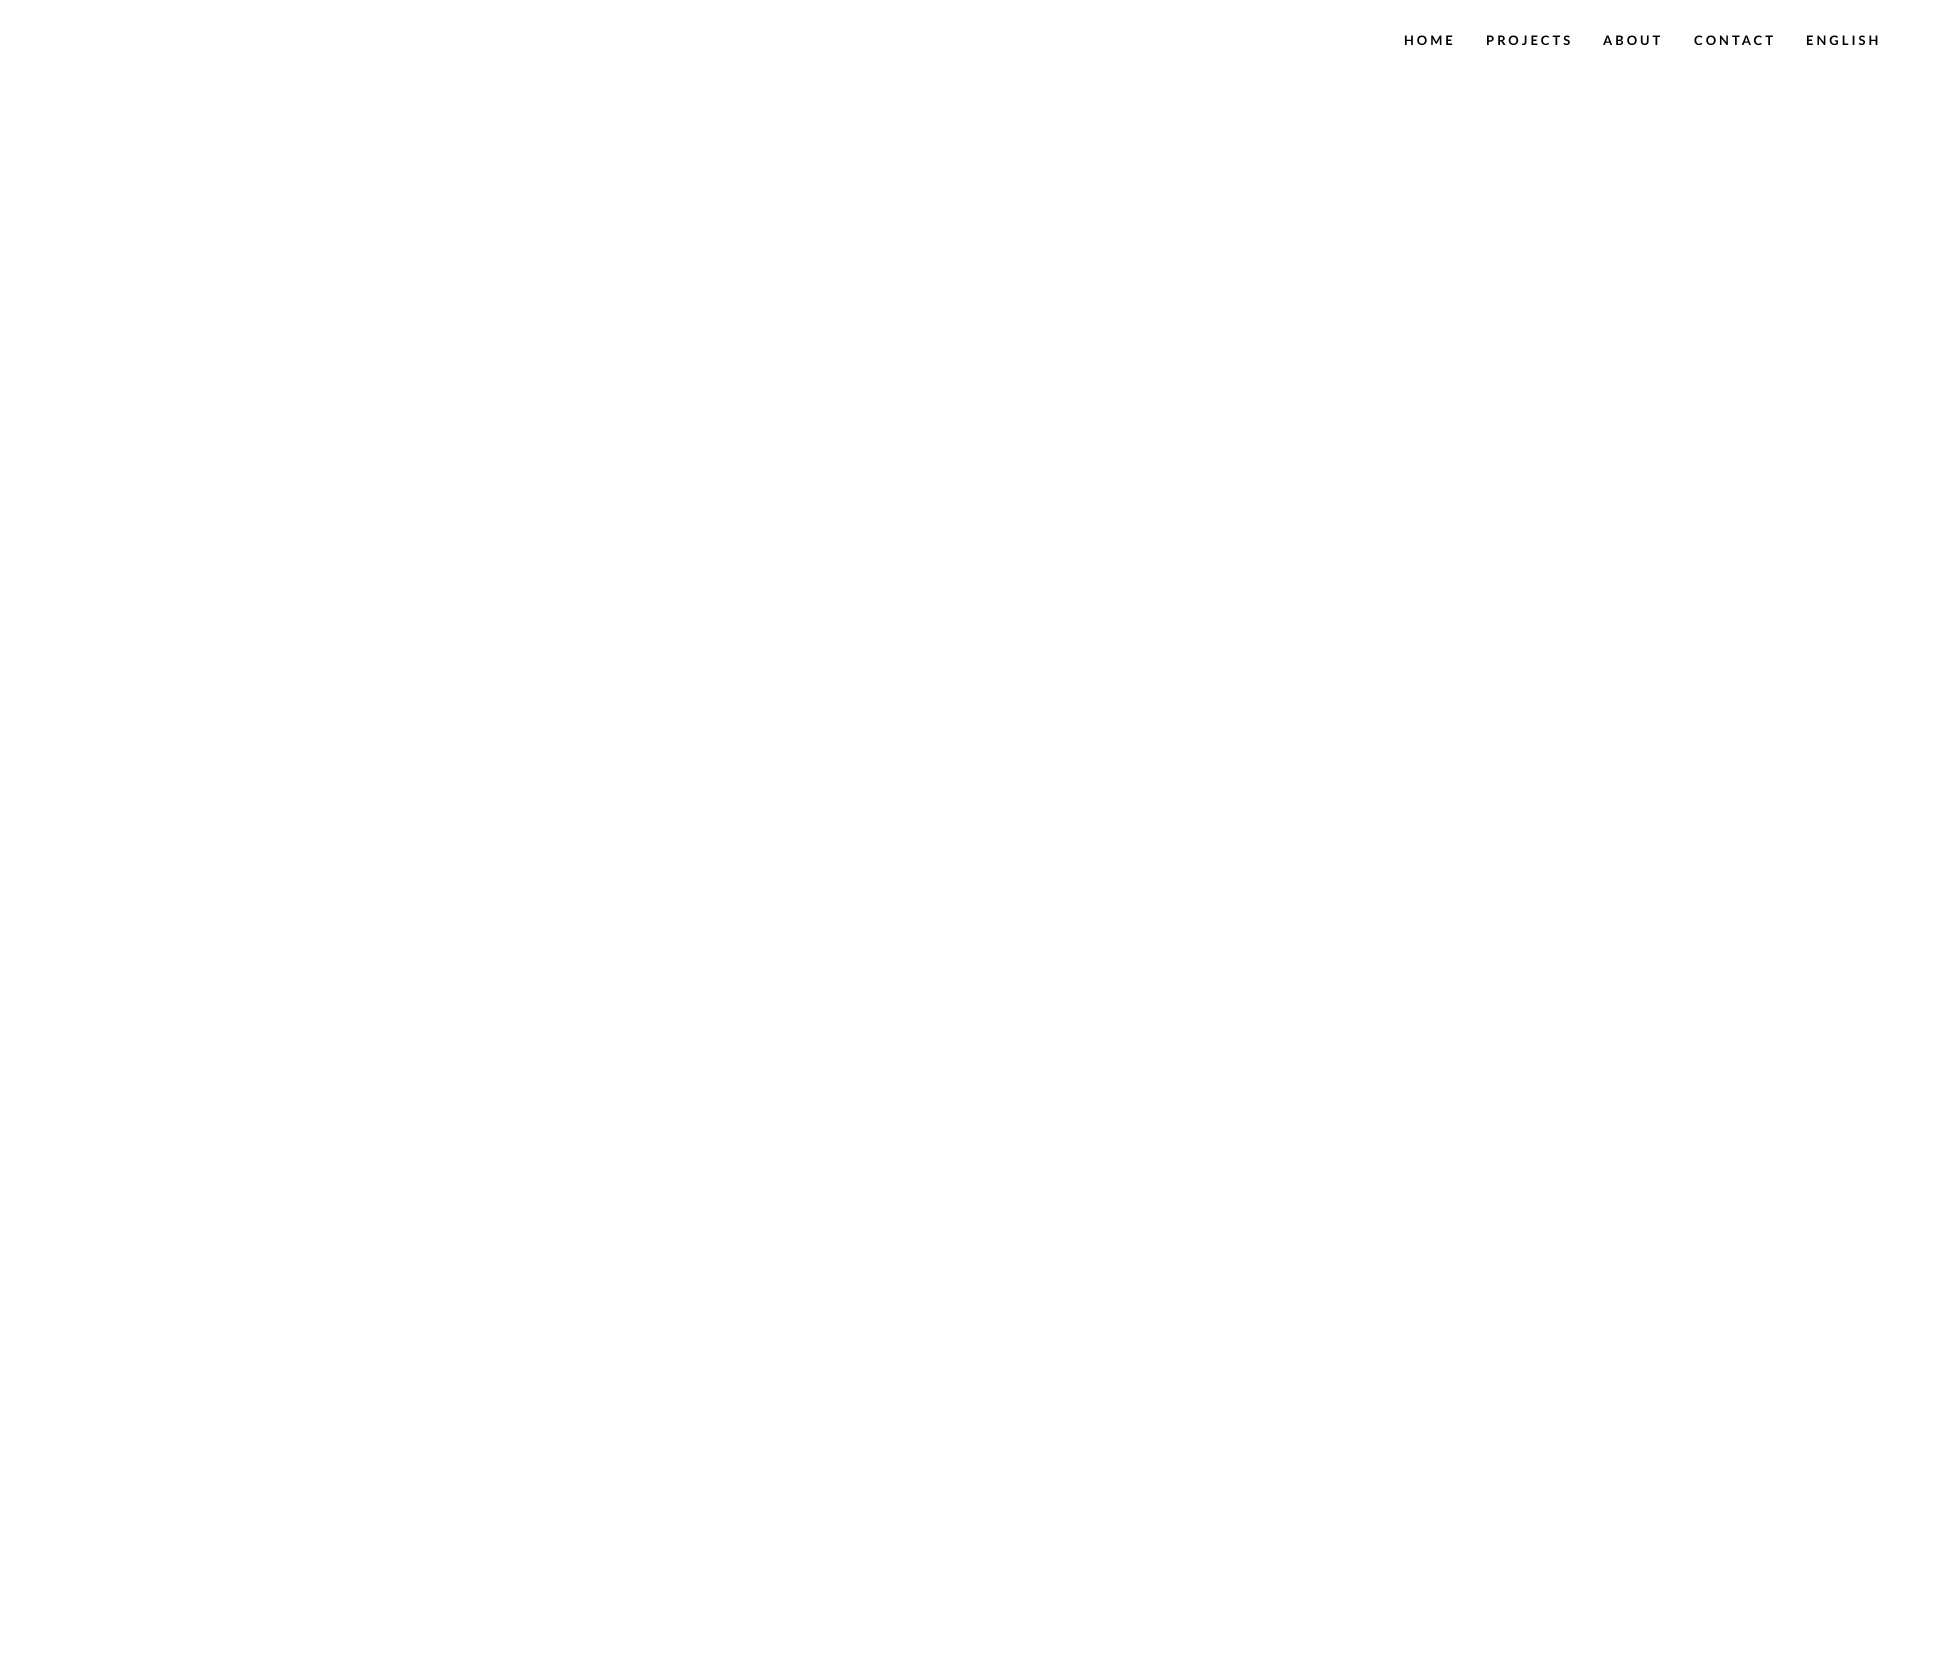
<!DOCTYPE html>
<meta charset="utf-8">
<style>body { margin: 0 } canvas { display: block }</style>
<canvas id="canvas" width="1956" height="1654"></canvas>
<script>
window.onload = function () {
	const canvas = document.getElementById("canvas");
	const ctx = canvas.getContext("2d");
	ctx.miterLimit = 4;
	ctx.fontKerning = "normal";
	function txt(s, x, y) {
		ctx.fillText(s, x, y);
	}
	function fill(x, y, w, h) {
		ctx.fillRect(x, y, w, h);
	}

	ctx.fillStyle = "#FFFFFF";
	fill(0, 0, 1956, 1654);
	ctx.letterSpacing = "3px";
	ctx.font = "bold 13px Lato";
	ctx.fillStyle = "#000000";
	txt("HOME", 1404, 45);
	txt("PROJECTS", 1486, 45);
	txt("ABOUT", 1603, 45);
	txt("CONTACT", 1694, 45);
	txt("ENGLISH", 1806, 45);
};
</script>
